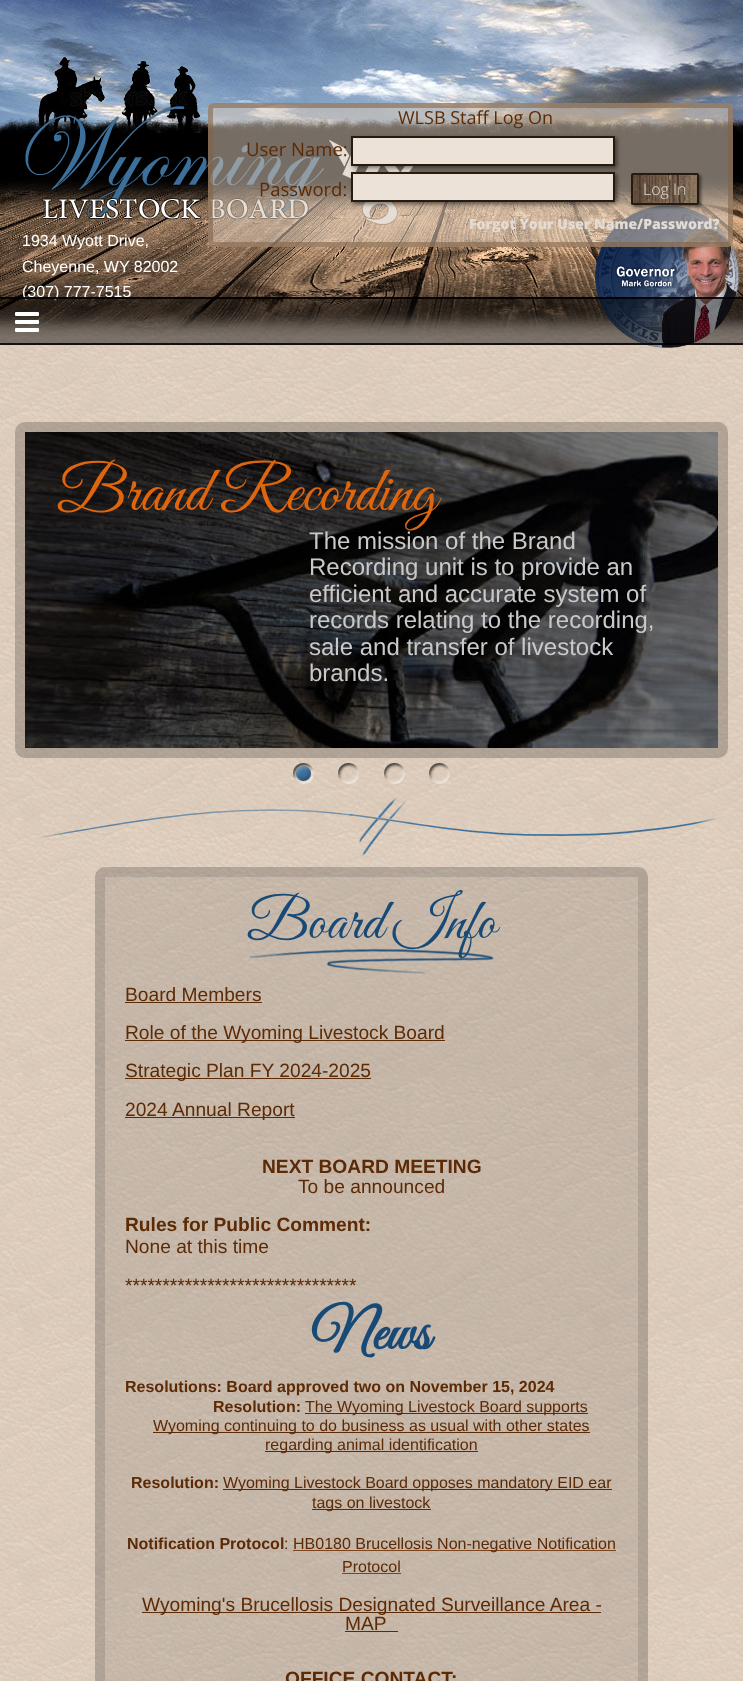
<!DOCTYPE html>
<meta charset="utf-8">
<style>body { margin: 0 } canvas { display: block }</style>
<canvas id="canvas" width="743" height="1681"></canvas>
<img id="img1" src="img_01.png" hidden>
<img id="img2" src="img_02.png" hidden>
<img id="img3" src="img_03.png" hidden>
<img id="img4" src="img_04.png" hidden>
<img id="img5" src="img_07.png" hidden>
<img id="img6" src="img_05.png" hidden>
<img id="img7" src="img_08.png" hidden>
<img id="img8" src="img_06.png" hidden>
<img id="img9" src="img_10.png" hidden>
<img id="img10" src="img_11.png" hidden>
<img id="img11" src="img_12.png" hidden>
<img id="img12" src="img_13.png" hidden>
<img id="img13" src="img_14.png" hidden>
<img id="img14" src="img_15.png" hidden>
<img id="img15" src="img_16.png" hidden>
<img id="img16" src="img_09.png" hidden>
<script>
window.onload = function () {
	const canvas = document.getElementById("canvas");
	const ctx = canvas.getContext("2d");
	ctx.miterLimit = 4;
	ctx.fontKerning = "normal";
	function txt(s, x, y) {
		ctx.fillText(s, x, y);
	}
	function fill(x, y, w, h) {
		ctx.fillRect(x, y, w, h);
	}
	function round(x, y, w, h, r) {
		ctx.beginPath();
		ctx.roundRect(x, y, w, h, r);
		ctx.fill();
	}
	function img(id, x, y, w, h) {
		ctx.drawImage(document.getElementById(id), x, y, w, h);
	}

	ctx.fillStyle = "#FFFFFF";
	fill(0, 0, 743, 1681);
	img("img1", 0, 304, 743, 1377);
	img("img2", 0, 133, 743, 203);
	img("img3", 0, 0, 743, 133);
	img("img4", 37, 56, 164, 77);
	img("img5", 0, 117, 743, 16);
	img("img6", 25, 106, 388, 119);
	img("img7", 595, 205, 144, 143);
	ctx.fillStyle = "rgba(211, 195, 178, 0.56)";
	round(208, 103, 525, 144, 6);
	ctx.beginPath();
	ctx.roundRect(210.5, 105.5, 520, 139, 3.5);
	ctx.strokeStyle = "rgba(130, 97, 67, 0.57)";
	ctx.lineWidth = 5;
	ctx.stroke();
	ctx.fillStyle = "rgba(0, 0, 0, 0.5)";
	ctx.filter = "blur(2px)";
	ctx.beginPath();
	ctx.rect(353, 138, 264, 30);
	ctx.fill();
	ctx.filter = "none";
	ctx.fillStyle = "#ECE2D8";
	ctx.beginPath();
	ctx.rect(352, 137, 262, 28);
	ctx.fill();
	ctx.strokeStyle = "#251B11";
	ctx.lineWidth = 2;
	ctx.stroke();
	ctx.fillStyle = "rgba(0, 0, 0, 0.5)";
	ctx.filter = "blur(2px)";
	ctx.beginPath();
	ctx.rect(353, 174, 264, 30);
	ctx.fill();
	ctx.filter = "none";
	ctx.fillStyle = "#ECE2D8";
	ctx.beginPath();
	ctx.rect(352, 173, 262, 28);
	ctx.fill();
	ctx.stroke();
	ctx.fillStyle = "rgba(0, 0, 0, 0.5)";
	ctx.filter = "blur(1.5px)";
	ctx.beginPath();
	ctx.roundRect(633, 175, 68, 32, 2);
	ctx.fill();
	ctx.filter = "none";
	img("img8", 631, 173, 68, 32);
	ctx.beginPath();
	ctx.roundRect(632, 174, 66, 30, 1);
	ctx.stroke();
	ctx.beginPath();
	ctx.roundRect(20, 427, 703, 326, 5);
	ctx.strokeStyle = "rgba(0, 0, 0, 0.2)";
	ctx.lineWidth = 10;
	ctx.stroke();
	img("img9", 25, 432, 693, 316);
	img("img10", 293, 763, 21, 21);
	img("img11", 338, 763, 21, 21);
	img("img12", 384, 763, 21, 21);
	img("img13", 429, 763, 21, 21);
	img("img14", 26, 797, 693, 59);
	ctx.fillStyle = "rgba(0, 0, 0, 0.1)";
	round(95, 867, 553, 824, 10);
	ctx.beginPath();
	ctx.roundRect(100, 872, 543, 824, 5);
	ctx.strokeStyle = "rgba(0, 0, 0, 0.1)";
	ctx.stroke();
	img("img15", 249, 948, 245, 26);
	ctx.fillStyle = "#5C2A05";
	fill(125, 1002, 137, 1);
	fill(125, 1040, 320, 1);
	fill(125, 1078, 246, 1);
	fill(125, 1117, 170, 1);
	fill(305, 1413, 283, 1);
	fill(153, 1432, 437, 1);
	fill(265, 1451, 213, 1);
	fill(223, 1489, 389, 1);
	fill(312, 1509, 119, 1);
	ctx.fillStyle = "#7F4419";
	fill(293, 1550, 323, 1);
	fill(342, 1573, 59, 1);
	ctx.fillStyle = "#5C2A05";
	fill(142, 1612, 459, 1);
	fill(345, 1631, 53, 1);
	ctx.font = "18px Open Sans";
	txt("WLSB Staff Log On", 398, 124);
	ctx.font = "18.5px Open Sans";
	txt("User Name:", 246, 156);
	txt("Password:", 259, 196);
	ctx.font = "300 16px Open Sans";
	ctx.fillStyle = "#E3DCD5";
	txt("Log In", 643, 195);
	ctx.font = "800 14px Open Sans";
	txt("Forgot Your User Name/Password?", 469, 229);
	ctx.font = "16px Liberation Sans";
	ctx.fillStyle = "#FFFFFF";
	txt("1934 Wyott Drive,", 22, 246);
	txt("Cheyenne, WY 82002", 22, 272);
	txt("(307) 777-7515", 22, 297);
	ctx.fillStyle = "rgba(0, 0, 0, 0.45)";
	fill(0, 297, 743, 48);
	ctx.fillStyle = "rgba(0, 0, 0, 0.85)";
	fill(0, 297, 743, 2);
	fill(0, 343, 743, 2);
	img("img16", 15, 312, 24, 20);
	ctx.font = "64px Great Vibes";
	ctx.fillStyle = "#E0660E";
	txt("Brand Recording", 57, 510);
	ctx.font = "24px Liberation Sans";
	ctx.fillStyle = "#C9C9C9";
	txt("The mission of the Brand", 309, 549);
	txt("Recording unit is to provide an", 309, 575);
	txt("efficient and accurate system of", 309, 602);
	txt("records relating to the recording,", 309, 628);
	txt("sale and transfer of livestock", 309, 655);
	txt("brands.", 309, 681);
	ctx.font = "57.5px Great Vibes";
	ctx.fillStyle = "#174A76";
	txt("Board Info", 247, 938);
	ctx.font = "19.2px Liberation Sans";
	ctx.fillStyle = "#5C2A05";
	txt("Board Members", 125, 1001);
	txt("Role of the Wyoming Livestock Board", 125, 1039);
	txt("Strategic Plan FY 2024-2025", 125, 1077);
	txt("2024 Annual Report", 125, 1116);
	ctx.font = "bold 19.2px Liberation Sans";
	txt("NEXT BOARD MEETING", 262, 1173);
	ctx.font = "19.2px Liberation Sans";
	txt("To be announced", 298, 1193);
	ctx.font = "bold 19.2px Liberation Sans";
	txt("Rules for Public Comment:", 125, 1231);
	ctx.font = "19.2px Liberation Sans";
	txt("None at this time", 125, 1253);
	txt("*******************************", 125, 1292);
	ctx.font = "bold 57.5px Great Vibes";
	ctx.fillStyle = "#174A76";
	txt("News", 312, 1349);
	ctx.font = "bold 16px Liberation Sans";
	ctx.fillStyle = "#5C2A05";
	txt("Resolutions: Board approved two on November 15, 2024", 125, 1392);
	txt("Resolution:", 213, 1412);
	ctx.font = "16px Liberation Sans";
	txt("The Wyoming Livestock Board supports", 305, 1412);
	txt("Wyoming continuing to do business as usual with other states", 153, 1431);
	txt("regarding animal identification", 265, 1450);
	ctx.font = "bold 16px Liberation Sans";
	txt("Resolution:", 131, 1488);
	ctx.font = "16px Liberation Sans";
	txt("Wyoming Livestock Board opposes mandatory EID ear", 223, 1488);
	txt("tags on livestock", 312, 1508);
	ctx.font = "bold 16px Liberation Sans";
	txt("Notification Protocol", 127, 1549);
	ctx.font = "16px Liberation Sans";
	txt(":", 284, 1549);
	txt("HB0180 Brucellosis Non-negative Notification", 293, 1549);
	txt("Protocol", 342, 1572);
	ctx.font = "19.2px Liberation Sans";
	txt("Wyoming's Brucellosis Designated Surveillance Area -", 142, 1611);
	txt("MAP", 345, 1630);
	ctx.font = "bold 19.2px Liberation Sans";
	txt("OFFICE CONTACT:", 285, 1685);
};
</script>
